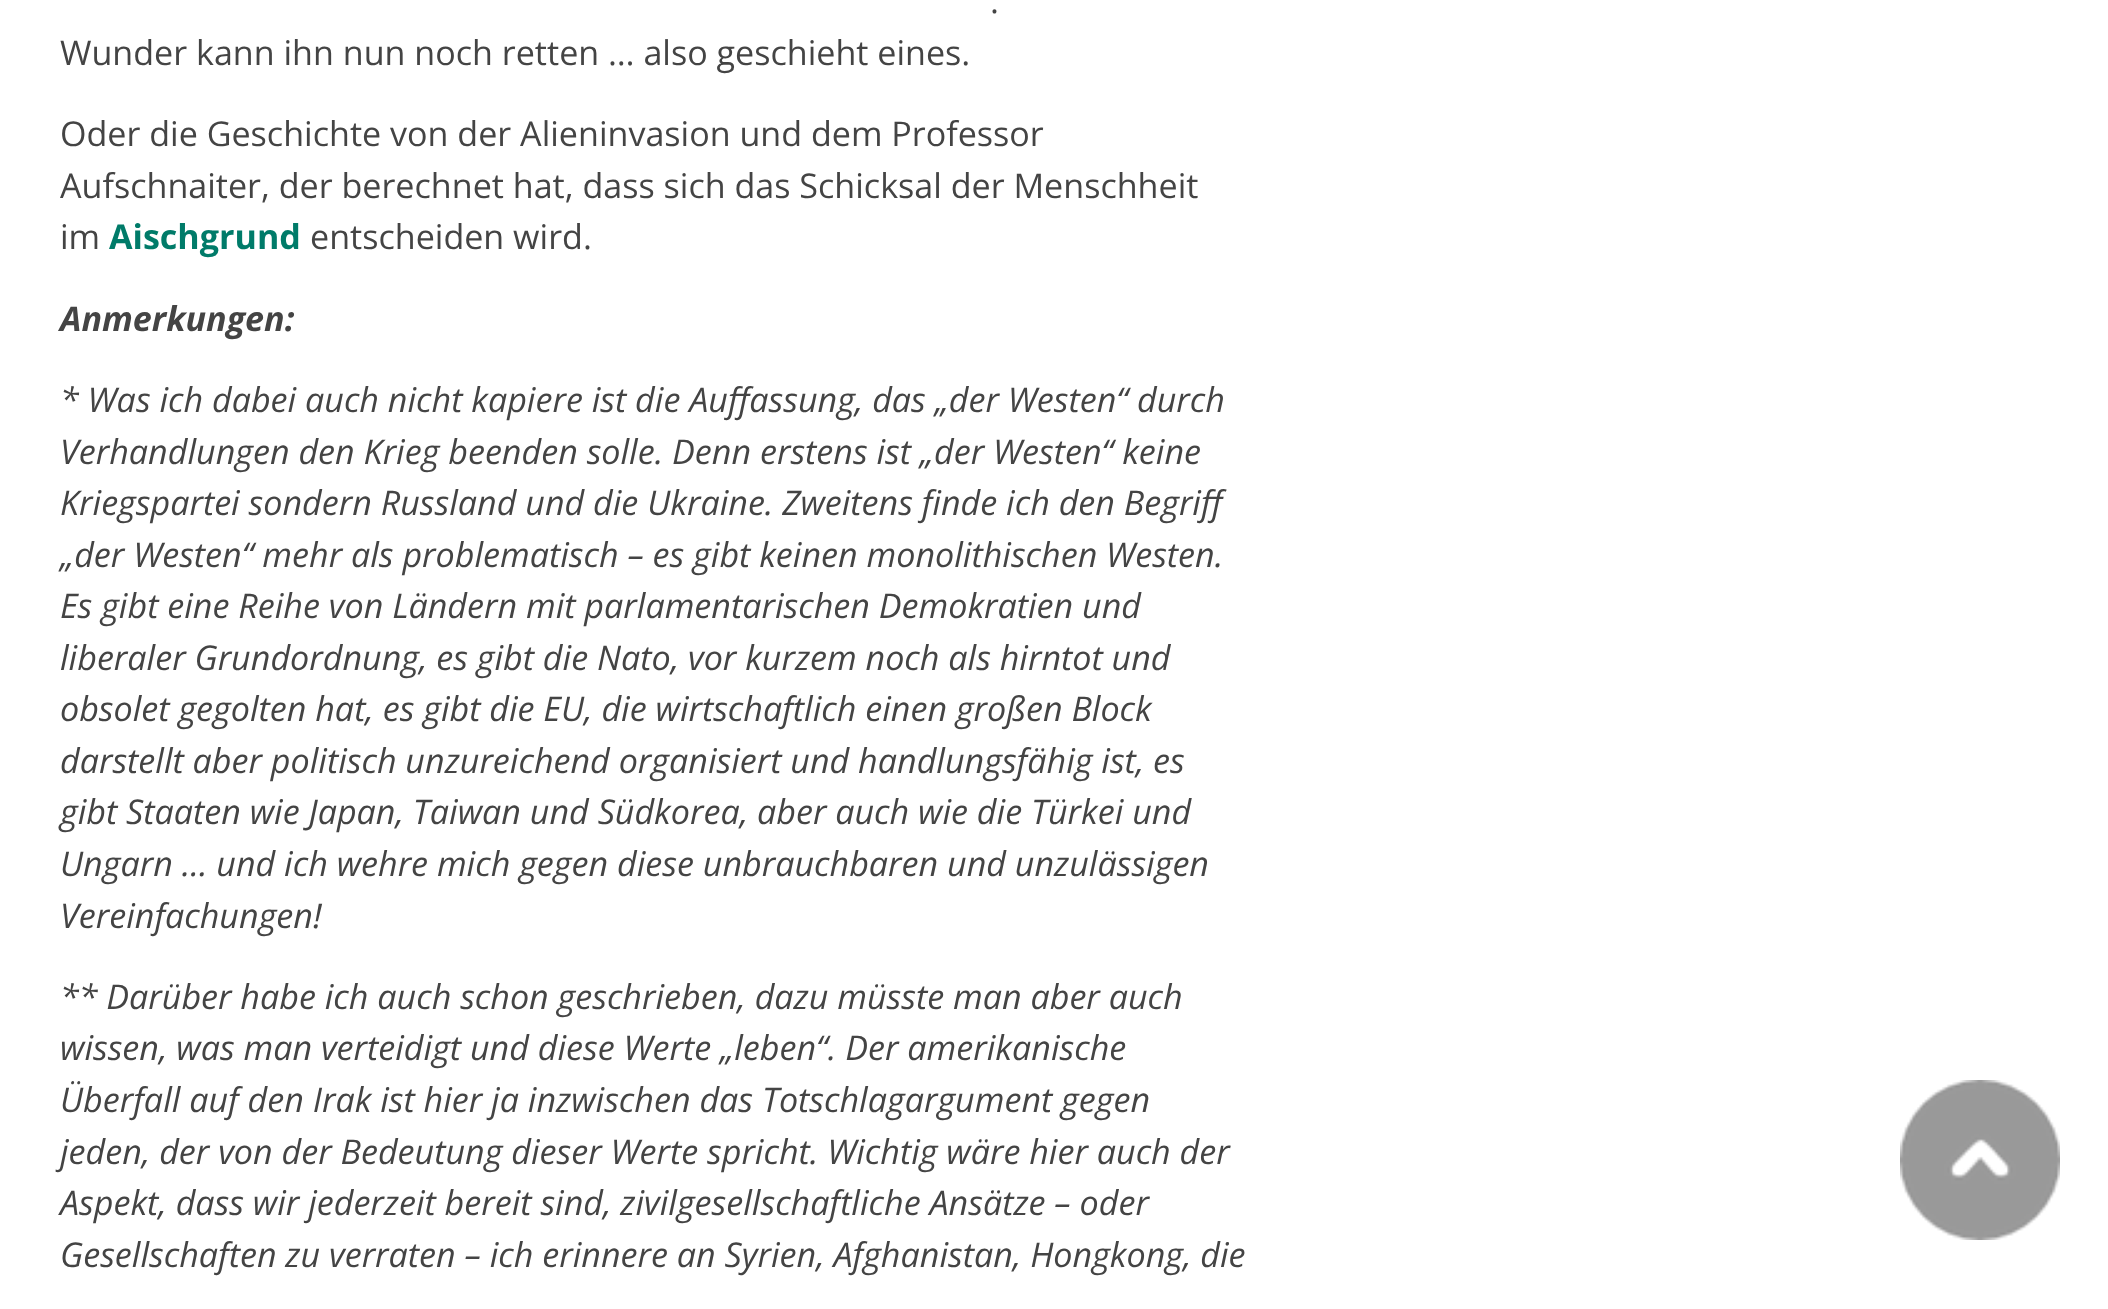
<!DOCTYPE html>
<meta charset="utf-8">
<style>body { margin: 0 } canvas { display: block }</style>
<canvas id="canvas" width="2108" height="1309"></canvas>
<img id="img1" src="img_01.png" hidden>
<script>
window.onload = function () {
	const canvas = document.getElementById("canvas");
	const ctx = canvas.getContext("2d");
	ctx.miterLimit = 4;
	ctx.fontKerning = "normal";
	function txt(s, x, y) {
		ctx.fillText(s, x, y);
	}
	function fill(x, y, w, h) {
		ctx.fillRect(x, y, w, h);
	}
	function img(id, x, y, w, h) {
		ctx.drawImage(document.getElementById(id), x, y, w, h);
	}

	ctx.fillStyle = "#FFFFFF";
	fill(0, 0, 2108, 1309);
	img("img1", 1900, 1080, 160, 160);
	ctx.font = "34.1px Open Sans";
	ctx.fillStyle = "#444444";
	txt(".", 990, 13);
	txt("Wunder kann ihn nun noch retten … also geschieht eines.", 60, 65);
	txt("Oder die Geschichte von der Alieninvasion und dem Professor", 60, 146);
	txt("Aufschnaiter, der berechnet hat, dass sich das Schicksal der Menschheit", 60, 198);
	txt("im", 60, 249);
	ctx.font = "bold 34.1px Open Sans";
	ctx.fillStyle = "#007B69";
	txt("Aischgrund", 109, 249);
	ctx.font = "34.1px Open Sans";
	ctx.fillStyle = "#444444";
	txt("entscheiden wird.", 310, 249);
	ctx.font = "italic bold 34.1px Open Sans";
	txt("Anmerkungen:", 60, 331);
	ctx.font = "italic 34.1px Open Sans";
	txt("* Was ich dabei auch nicht kapiere ist die Auffassung, das „der Westen“ durch", 60, 412);
	txt("Verhandlungen den Krieg beenden solle. Denn erstens ist „der Westen“ keine", 60, 464);
	txt("Kriegspartei sondern Russland und die Ukraine. Zweitens finde ich den Begriff", 60, 515);
	txt("„der Westen“ mehr als problematisch – es gibt keinen monolithischen Westen.", 60, 567);
	txt("Es gibt eine Reihe von Ländern mit parlamentarischen Demokratien und", 60, 618);
	txt("liberaler Grundordnung, es gibt die Nato, vor kurzem noch als hirntot und", 60, 670);
	txt("obsolet gegolten hat, es gibt die EU, die wirtschaftlich einen großen Block", 60, 721);
	txt("darstellt aber politisch unzureichend organisiert und handlungsfähig ist, es", 60, 773);
	txt("gibt Staaten wie Japan, Taiwan und Südkorea, aber auch wie die Türkei und", 60, 824);
	txt("Ungarn … und ich wehre mich gegen diese unbrauchbaren und unzulässigen", 60, 876);
	txt("Vereinfachungen!", 60, 928);
	txt("** Darüber habe ich auch schon geschrieben, dazu müsste man aber auch", 60, 1009);
	txt("wissen, was man verteidigt und diese Werte „leben“. Der amerikanische", 60, 1060);
	txt("Überfall auf den Irak ist hier ja inzwischen das Totschlagargument gegen", 60, 1112);
	txt("jeden, der von der Bedeutung dieser Werte spricht. Wichtig wäre hier auch der", 60, 1164);
	txt("Aspekt, dass wir jederzeit bereit sind, zivilgesellschaftliche Ansätze – oder", 60, 1215);
	txt("Gesellschaften zu verraten – ich erinnere an Syrien, Afghanistan, Hongkong, die", 60, 1267);
};
</script>
